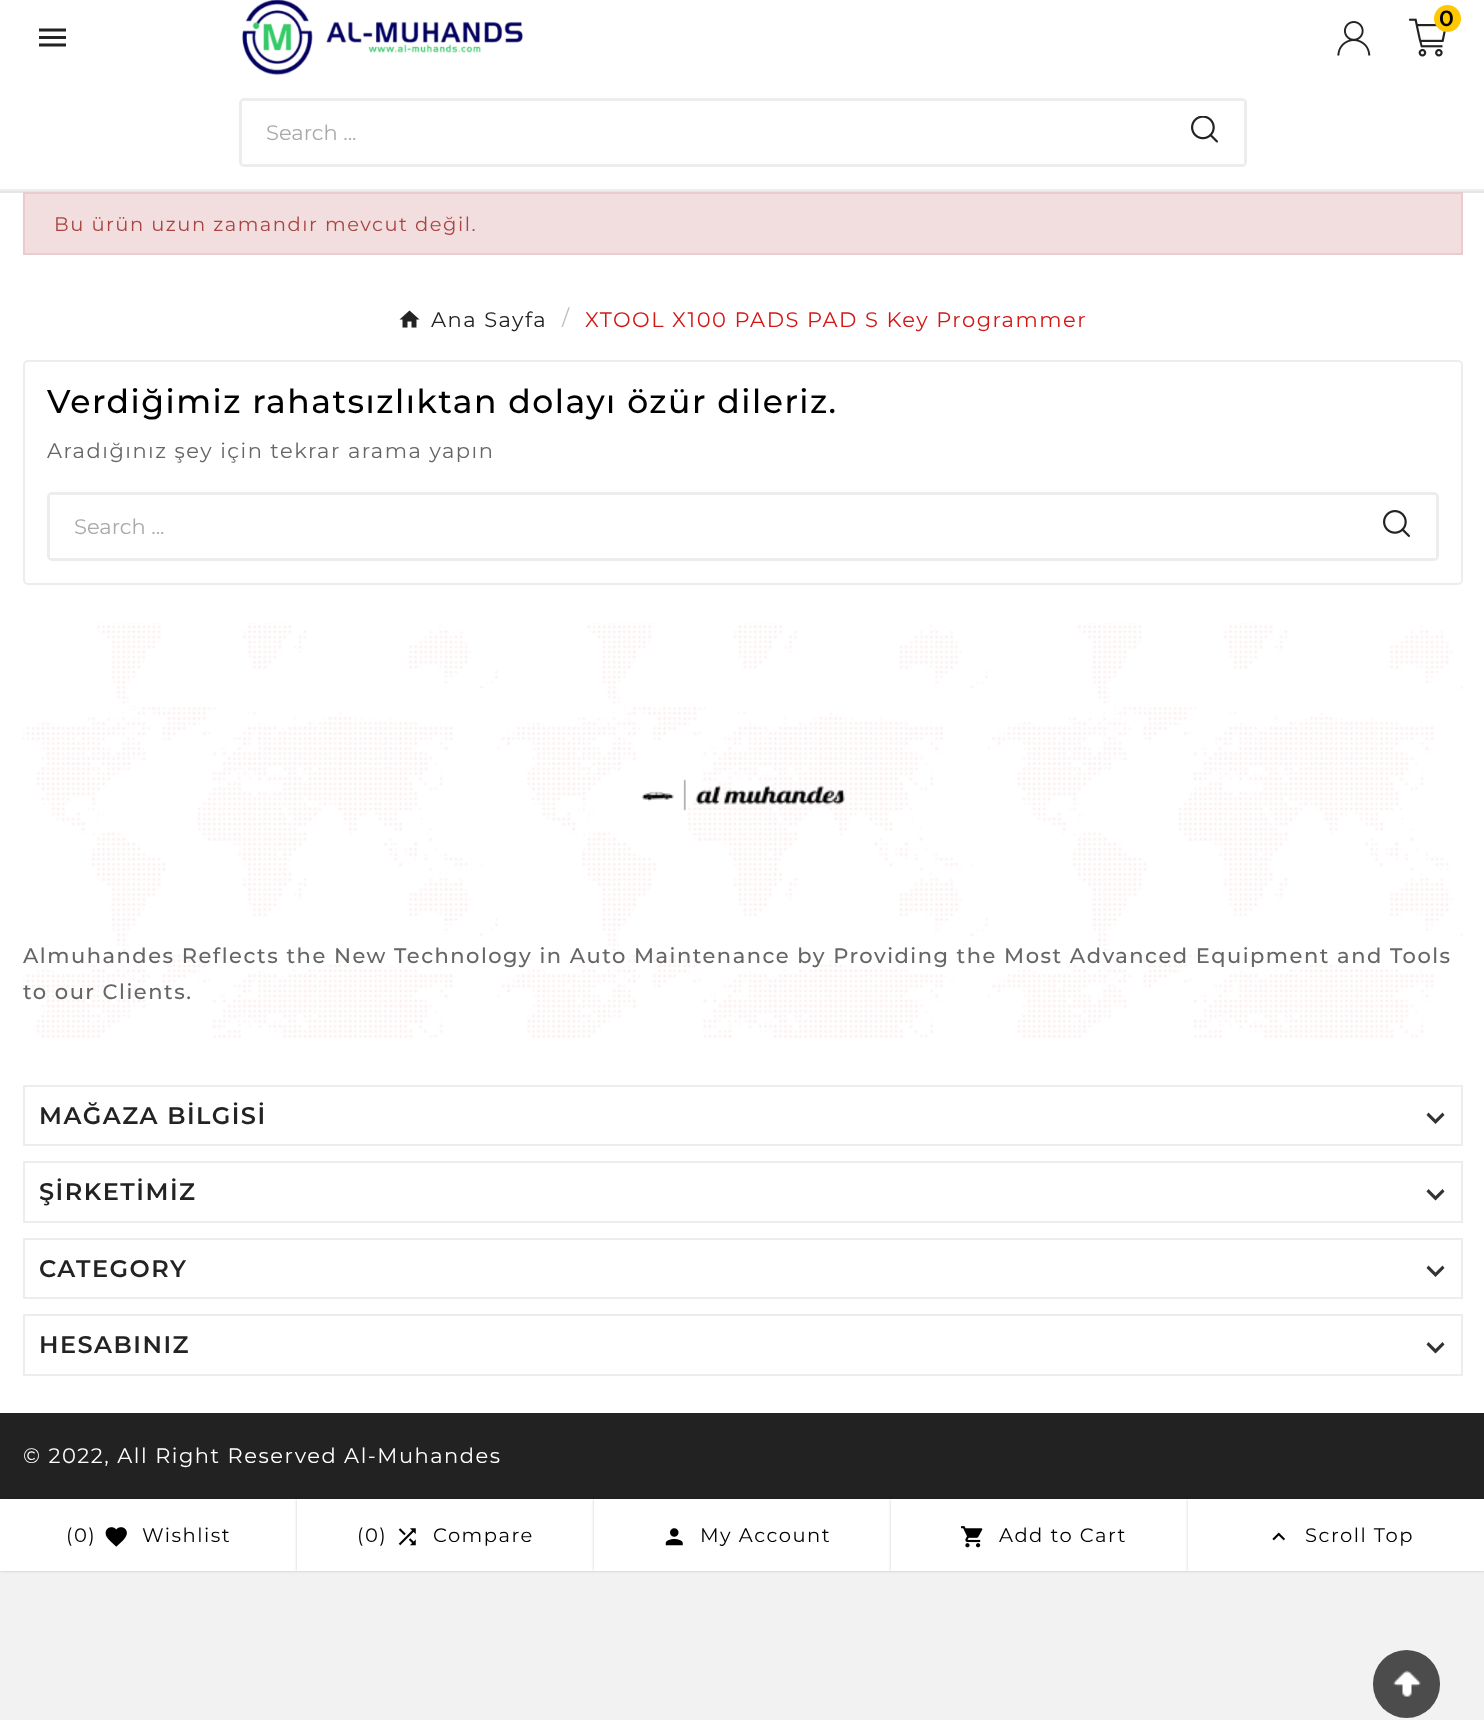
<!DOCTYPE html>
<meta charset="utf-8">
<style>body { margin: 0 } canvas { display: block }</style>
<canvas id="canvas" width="1484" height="1720"></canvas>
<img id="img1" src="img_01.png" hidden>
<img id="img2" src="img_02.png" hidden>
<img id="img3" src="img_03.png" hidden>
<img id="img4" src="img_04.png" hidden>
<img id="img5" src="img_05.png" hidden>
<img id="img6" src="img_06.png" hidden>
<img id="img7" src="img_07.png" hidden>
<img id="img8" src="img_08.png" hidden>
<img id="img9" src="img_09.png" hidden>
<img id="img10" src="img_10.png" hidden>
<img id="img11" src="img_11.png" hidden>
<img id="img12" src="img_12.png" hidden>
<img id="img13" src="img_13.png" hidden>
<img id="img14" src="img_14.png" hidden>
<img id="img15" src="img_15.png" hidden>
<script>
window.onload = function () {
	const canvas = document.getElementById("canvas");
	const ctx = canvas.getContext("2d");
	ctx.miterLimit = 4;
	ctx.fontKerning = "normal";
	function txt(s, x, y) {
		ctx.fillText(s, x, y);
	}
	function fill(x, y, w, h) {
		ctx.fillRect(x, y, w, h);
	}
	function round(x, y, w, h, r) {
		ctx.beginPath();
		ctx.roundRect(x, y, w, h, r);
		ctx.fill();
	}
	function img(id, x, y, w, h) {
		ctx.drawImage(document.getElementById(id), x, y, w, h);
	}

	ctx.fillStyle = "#F2F2F2";
	fill(0, 0, 1484, 1720);
	ctx.fillStyle = "#FFFFFF";
	fill(0, 0, 1484, 1413);
	ctx.fillStyle = "#E5E5E5";
	fill(0, 191, 1484, 2);
	ctx.fillStyle = "#EDEDED";
	fill(0, 189, 1484, 2);
	img("img1", 242, 0, 281, 75);
	img("img2", 1409, 18, 37, 39);
	ctx.fillStyle = "#FFC800";
	ctx.beginPath();
	ctx.arc(1447.5, 18.5, 13.5, 0, Math.PI * 2);
	ctx.fill();
	img("img3", 1337, 21, 34, 35);
	img("img4", 39, 28, 27, 19);
	ctx.beginPath();
	ctx.roundRect(240.5, 99.5, 1005, 66, 3.5);
	ctx.strokeStyle = "#EDEDED";
	ctx.lineWidth = 3;
	ctx.stroke();
	ctx.fillStyle = "#FFFFFF";
	fill(242, 101, 1, 63);
	fill(1243, 101, 1, 63);
	img("img5", 1191, 116, 27, 27);
	ctx.fillStyle = "#F2DEDE";
	ctx.beginPath();
	ctx.rect(24, 193, 1438, 61);
	ctx.fill();
	ctx.strokeStyle = "#EBCCCC";
	ctx.lineWidth = 2;
	ctx.stroke();
	img("img6", 399, 310, 21, 18);
	ctx.beginPath();
	ctx.roundRect(24, 361, 1438, 223, 4);
	ctx.strokeStyle = "#EDEDED";
	ctx.stroke();
	ctx.beginPath();
	ctx.roundRect(48.5, 493.5, 1389, 66, 3.5);
	ctx.lineWidth = 3;
	ctx.stroke();
	ctx.fillStyle = "#FFFFFF";
	fill(50, 495, 1, 63);
	fill(1435, 495, 1, 63);
	img("img7", 1383, 510, 27, 27);
	img("img8", 22, 623, 1441, 415);
	img("img9", 641, 779, 204, 32);
	ctx.lineWidth = 2;
	ctx.strokeRect(24, 1086, 1438, 59);
	ctx.fillStyle = "#333333";
	ctx.beginPath();
	ctx.moveTo(1428.5, 1112.5);
	ctx.lineTo(1435.5, 1119.5);
	ctx.lineTo(1442.5, 1112.5);
	ctx.lineTo(1444.5, 1115);
	ctx.lineTo(1435.5, 1124);
	ctx.lineTo(1426.5, 1115);
	ctx.closePath();
	ctx.fill();
	ctx.strokeRect(24, 1162, 1438, 60);
	ctx.beginPath();
	ctx.moveTo(1428.5, 1189);
	ctx.lineTo(1435.5, 1196);
	ctx.lineTo(1442.5, 1189);
	ctx.lineTo(1444.5, 1191.5);
	ctx.lineTo(1435.5, 1200.5);
	ctx.lineTo(1426.5, 1191.5);
	ctx.closePath();
	ctx.fill();
	ctx.strokeRect(24, 1239, 1438, 59);
	ctx.beginPath();
	ctx.moveTo(1428.5, 1265.5);
	ctx.lineTo(1435.5, 1272.5);
	ctx.lineTo(1442.5, 1265.5);
	ctx.lineTo(1444.5, 1268);
	ctx.lineTo(1435.5, 1277);
	ctx.lineTo(1426.5, 1268);
	ctx.closePath();
	ctx.fill();
	ctx.strokeRect(24, 1315, 1438, 60);
	ctx.beginPath();
	ctx.moveTo(1428.5, 1342);
	ctx.lineTo(1435.5, 1349);
	ctx.lineTo(1442.5, 1342);
	ctx.lineTo(1444.5, 1344.5);
	ctx.lineTo(1435.5, 1353.5);
	ctx.lineTo(1426.5, 1344.5);
	ctx.closePath();
	ctx.fill();
	ctx.fillStyle = "#4C4C4C";
	round(1373, 1650, 67, 68, 33.5);
	img("img10", 1393, 1670, 28, 27);
	ctx.fillStyle = "#222222";
	fill(0, 1413, 1484, 86);
	ctx.fillStyle = "rgba(0, 0, 0, 0.2)";
	ctx.filter = "blur(1.5px)";
	ctx.beginPath();
	ctx.rect(0, 1499, 297, 72);
	ctx.fill();
	ctx.filter = "none";
	ctx.fillStyle = "#FFFFFF";
	fill(0, 1499, 297, 72);
	img("img11", 105, 1527, 22, 20);
	ctx.fillStyle = "rgba(0, 0, 0, 0.2)";
	ctx.filter = "blur(1.5px)";
	ctx.beginPath();
	ctx.rect(297, 1499, 297, 72);
	ctx.fill();
	ctx.filter = "none";
	ctx.fillStyle = "#FFFFFF";
	fill(297, 1499, 297, 72);
	img("img12", 398, 1528, 18, 18);
	ctx.fillStyle = "rgba(0, 0, 0, 0.2)";
	ctx.filter = "blur(1.5px)";
	ctx.beginPath();
	ctx.rect(594, 1499, 297, 72);
	ctx.fill();
	ctx.filter = "none";
	ctx.fillStyle = "#FFFFFF";
	fill(594, 1499, 297, 72);
	img("img13", 665, 1528, 18, 18);
	ctx.fillStyle = "rgba(0, 0, 0, 0.2)";
	ctx.filter = "blur(1.5px)";
	ctx.beginPath();
	ctx.rect(891, 1499, 297, 72);
	ctx.fill();
	ctx.filter = "none";
	ctx.fillStyle = "#FFFFFF";
	fill(891, 1499, 297, 72);
	img("img14", 961, 1526, 22, 22);
	ctx.fillStyle = "rgba(0, 0, 0, 0.2)";
	ctx.filter = "blur(1.5px)";
	ctx.beginPath();
	ctx.rect(1188, 1499, 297, 72);
	ctx.fill();
	ctx.filter = "none";
	ctx.fillStyle = "#FFFFFF";
	fill(1188, 1499, 296, 72);
	img("img15", 1272, 1532, 13, 9);
	ctx.letterSpacing = "1.5px";
	ctx.font = "600 22px Montserrat";
	ctx.fillStyle = "#000000";
	txt("0", 1439, 26);
	ctx.letterSpacing = "0px";
	ctx.font = "21px Montserrat";
	ctx.fillStyle = "#AAAAAA";
	txt("Search ...", 266, 140);
	ctx.letterSpacing = "1.5px";
	ctx.font = "19.5px Montserrat";
	ctx.fillStyle = "#A94442";
	txt("Bu ürün uzun zamandır mevcut değil.", 54, 231);
	ctx.font = "21px Montserrat";
	ctx.fillStyle = "#232323";
	txt("Ana Sayfa", 431, 327);
	ctx.fillStyle = "#BDBDBD";
	txt("/", 562, 325);
	ctx.fillStyle = "#D21717";
	txt("XTOOL X100 PADS PAD S Key Programmer", 585, 327);
	ctx.font = "500 33px Montserrat";
	ctx.fillStyle = "#000000";
	txt("Verdiğimiz rahatsızlıktan dolayı özür dileriz.", 47, 413);
	ctx.font = "21px Montserrat";
	ctx.fillStyle = "#666666";
	txt("Aradığınız şey için tekrar arama yapın", 47, 458);
	ctx.letterSpacing = "0px";
	ctx.fillStyle = "#AAAAAA";
	txt("Search ...", 74, 534);
	ctx.letterSpacing = "1.5px";
	ctx.font = "500 21px Montserrat";
	ctx.fillStyle = "#666666";
	txt("Almuhandes Reflects the New Technology in Auto Maintenance by Providing the Most Advanced Equipment and Tools", 23, 963);
	txt("to our Clients.", 23, 999);
	ctx.font = "600 24px Montserrat";
	ctx.fillStyle = "#232323";
	txt("MAĞAZA BİLGİSİ", 39, 1124);
	txt("ŞİRKETİMİZ", 39, 1200);
	txt("CATEGORY", 39, 1277);
	txt("HESABINIZ", 39, 1353);
	ctx.font = "21px Montserrat";
	ctx.fillStyle = "#FFFFFF";
	txt("© 2022, All Right Reserved Al-Muhandes", 23, 1463);
	ctx.font = "19.5px Montserrat";
	ctx.fillStyle = "#000000";
	txt("(0)", 66, 1542);
	txt("Wishlist", 142, 1542);
	txt("(0)", 357, 1542);
	txt("Compare", 433, 1542);
	txt("My Account", 700, 1542);
	txt("Add to Cart", 999, 1542);
	txt("Scroll Top", 1305, 1542);
};
</script>
